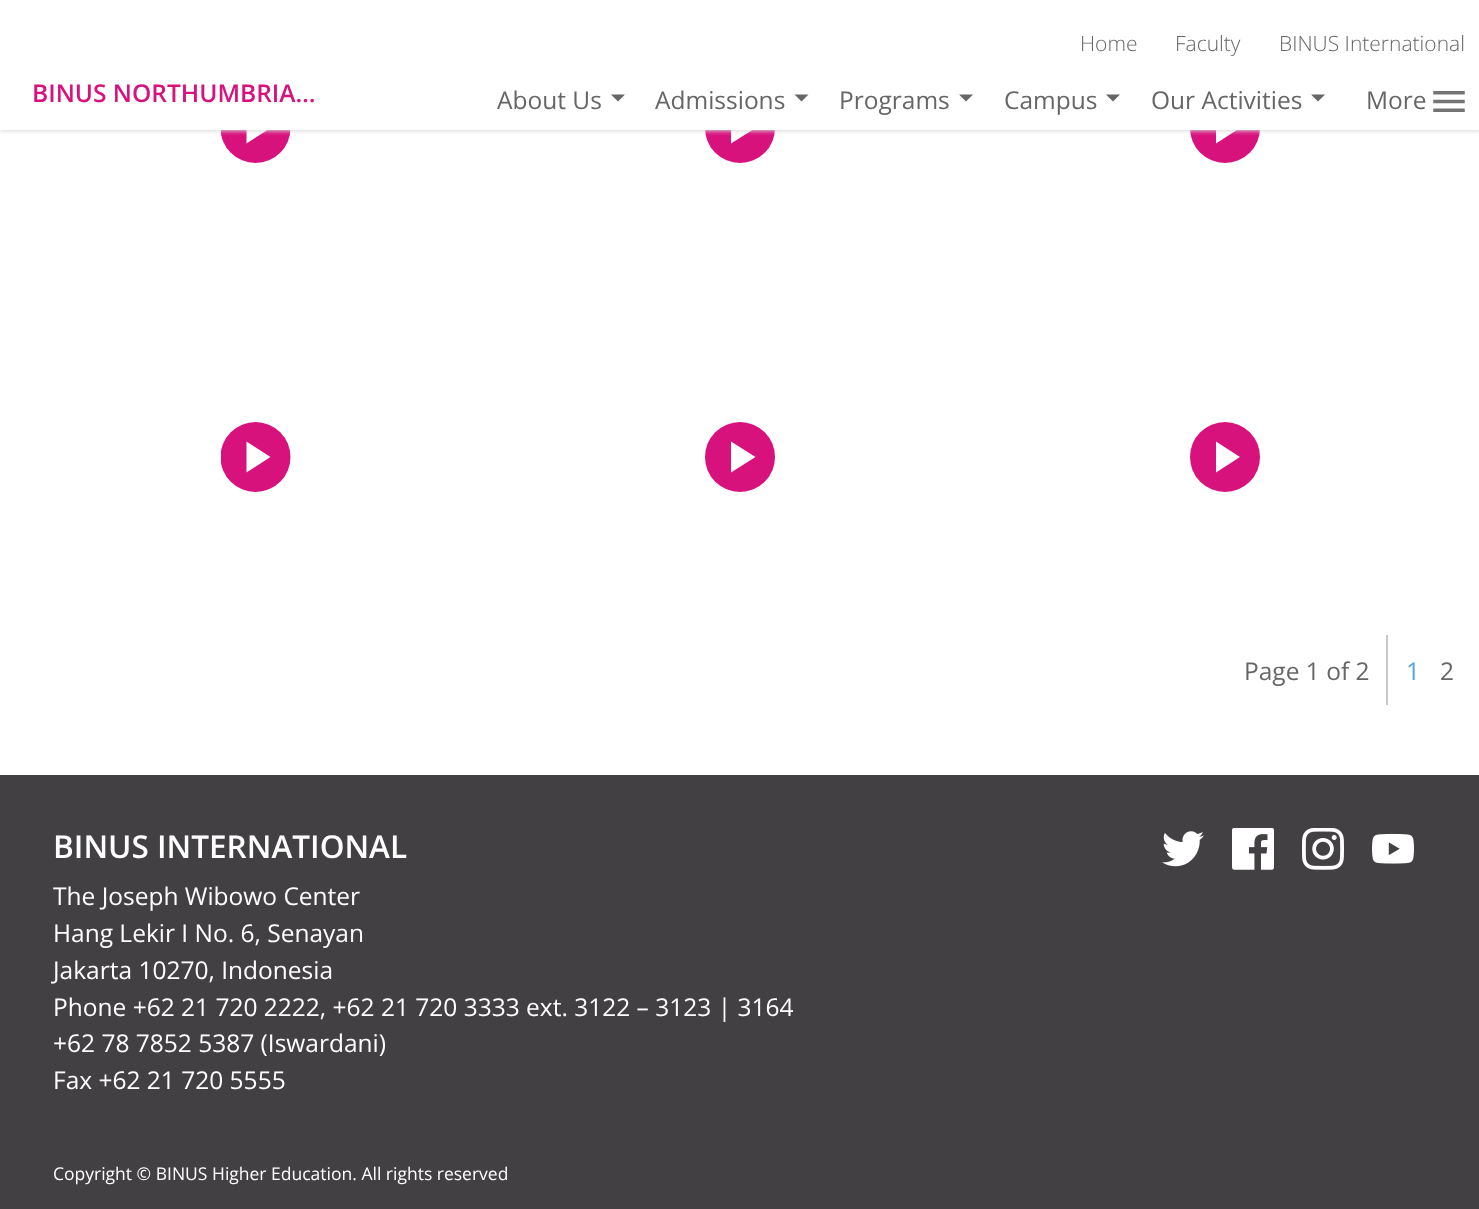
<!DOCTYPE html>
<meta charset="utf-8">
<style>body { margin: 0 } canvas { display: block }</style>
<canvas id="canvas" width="1479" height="1209"></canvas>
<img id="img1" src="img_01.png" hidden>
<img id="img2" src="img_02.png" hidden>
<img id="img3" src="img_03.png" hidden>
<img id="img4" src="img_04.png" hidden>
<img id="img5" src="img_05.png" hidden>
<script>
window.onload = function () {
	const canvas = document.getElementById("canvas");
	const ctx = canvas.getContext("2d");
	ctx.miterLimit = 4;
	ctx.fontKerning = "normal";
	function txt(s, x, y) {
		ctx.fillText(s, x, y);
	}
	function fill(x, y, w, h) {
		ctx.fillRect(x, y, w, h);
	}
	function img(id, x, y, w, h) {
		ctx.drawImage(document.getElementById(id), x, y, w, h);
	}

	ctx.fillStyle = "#FFFFFF";
	fill(0, 0, 1479, 1209);
	ctx.save();
	ctx.beginPath();
	ctx.rect(221, 93, 70, 70);
	ctx.clip();
	ctx.fillStyle = "#D8127D";
	ctx.beginPath();
	ctx.arc(255.5, 128, 35, 0, Math.PI * 2);
	ctx.fill();
	ctx.restore();
	ctx.beginPath();
	ctx.moveTo(246.5, 112.5);
	ctx.lineTo(246.5, 143.5);
	ctx.lineTo(270.5, 128);
	ctx.closePath();
	ctx.fill();
	ctx.fillStyle = "#D8127D";
	ctx.beginPath();
	ctx.arc(740, 128, 35, 0, Math.PI * 2);
	ctx.fill();
	ctx.fillStyle = "#FFFFFF";
	ctx.beginPath();
	ctx.moveTo(731, 112.5);
	ctx.lineTo(731, 143.5);
	ctx.lineTo(755.5, 128);
	ctx.closePath();
	ctx.fill();
	ctx.fillStyle = "#D8127D";
	ctx.beginPath();
	ctx.arc(1225, 128, 35, 0, Math.PI * 2);
	ctx.fill();
	ctx.fillStyle = "#FFFFFF";
	ctx.beginPath();
	ctx.moveTo(1216, 112.5);
	ctx.lineTo(1216, 143.5);
	ctx.lineTo(1240, 128);
	ctx.closePath();
	ctx.fill();
	ctx.fillStyle = "#D8D8D8";
	ctx.filter = "blur(2px)";
	ctx.beginPath();
	ctx.rect(0, 2, 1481, 129);
	ctx.fill();
	ctx.filter = "none";
	ctx.fillStyle = "#FFFFFF";
	fill(0, 0, 1479, 130);
	ctx.fillStyle = "#666666";
	ctx.beginPath();
	ctx.moveTo(611, 94.5);
	ctx.lineTo(625, 94.5);
	ctx.lineTo(618, 101.5);
	ctx.closePath();
	ctx.fill();
	ctx.beginPath();
	ctx.moveTo(794.5, 94.5);
	ctx.lineTo(808.5, 94.5);
	ctx.lineTo(801.5, 101.5);
	ctx.closePath();
	ctx.fill();
	ctx.beginPath();
	ctx.moveTo(959, 94.5);
	ctx.lineTo(973, 94.5);
	ctx.lineTo(966, 101.5);
	ctx.closePath();
	ctx.fill();
	ctx.beginPath();
	ctx.moveTo(1106, 94.5);
	ctx.lineTo(1120, 94.5);
	ctx.lineTo(1113, 101.5);
	ctx.closePath();
	ctx.fill();
	ctx.beginPath();
	ctx.moveTo(1311, 94.5);
	ctx.lineTo(1325, 94.5);
	ctx.lineTo(1318, 101.5);
	ctx.closePath();
	ctx.fill();
	img("img1", 1433, 91, 32, 21);
	ctx.save();
	ctx.beginPath();
	ctx.rect(221, 422, 70, 70);
	ctx.clip();
	ctx.fillStyle = "#D8127D";
	ctx.beginPath();
	ctx.arc(255.5, 457, 35, 0, Math.PI * 2);
	ctx.fill();
	ctx.restore();
	ctx.fillStyle = "#FFFFFF";
	ctx.beginPath();
	ctx.moveTo(246.5, 441.5);
	ctx.lineTo(246.5, 472.5);
	ctx.lineTo(270.5, 457);
	ctx.closePath();
	ctx.fill();
	ctx.fillStyle = "#D8127D";
	ctx.beginPath();
	ctx.arc(740, 457, 35, 0, Math.PI * 2);
	ctx.fill();
	ctx.fillStyle = "#FFFFFF";
	ctx.beginPath();
	ctx.moveTo(731, 441.5);
	ctx.lineTo(731, 472.5);
	ctx.lineTo(755.5, 457);
	ctx.closePath();
	ctx.fill();
	ctx.fillStyle = "#D8127D";
	ctx.beginPath();
	ctx.arc(1225, 457, 35, 0, Math.PI * 2);
	ctx.fill();
	ctx.fillStyle = "#FFFFFF";
	ctx.beginPath();
	ctx.moveTo(1216, 441.5);
	ctx.lineTo(1216, 472.5);
	ctx.lineTo(1240, 457);
	ctx.closePath();
	ctx.fill();
	ctx.fillStyle = "#C9C9C9";
	fill(1386, 635, 2, 70);
	ctx.fillStyle = "#424043";
	fill(0, 775, 1479, 434);
	img("img2", 1162, 831, 42, 36);
	img("img3", 1232, 828, 42, 42);
	img("img4", 1302, 828, 42, 42);
	img("img5", 1372, 833, 42, 31);
	ctx.font = "600 24.5px Open Sans";
	ctx.fillStyle = "#D8127D";
	txt("BINUS NORTHUMBRIA…", 32, 102);
	ctx.font = "300 21px Open Sans";
	ctx.fillStyle = "#666666";
	txt("Home", 1080, 51);
	txt("Faculty", 1175, 51);
	txt("BINUS International", 1279, 51);
	ctx.font = "24.5px Open Sans";
	txt("About Us", 497, 109);
	txt("Admissions", 655, 109);
	txt("Programs", 839, 109);
	txt("Campus", 1004, 109);
	txt("Our Activities", 1151, 109);
	txt("More", 1366, 109);
	txt("Page 1 of 2", 1244, 680);
	ctx.fillStyle = "#51A3E2";
	txt("1", 1406, 680);
	ctx.fillStyle = "#666666";
	txt("2", 1440, 680);
	ctx.font = "600 31.5px Open Sans";
	ctx.fillStyle = "#FFFFFF";
	txt("BINUS INTERNATIONAL", 53, 858);
	ctx.font = "24.5px Open Sans";
	txt("The Joseph Wibowo Center", 53, 905);
	txt("Hang Lekir I No. 6, Senayan", 53, 942);
	txt("Jakarta 10270, Indonesia", 53, 979);
	txt("Phone +62 21 720 2222, +62 21 720 3333 ext. 3122 – 3123 | 3164", 53, 1016);
	txt("+62 78 7852 5387 (Iswardani)", 53, 1052);
	txt("Fax +62 21 720 5555", 53, 1089);
	ctx.font = "17.5px Open Sans";
	txt("Copyright © BINUS Higher Education. All rights reserved", 53, 1180);
};
</script>
